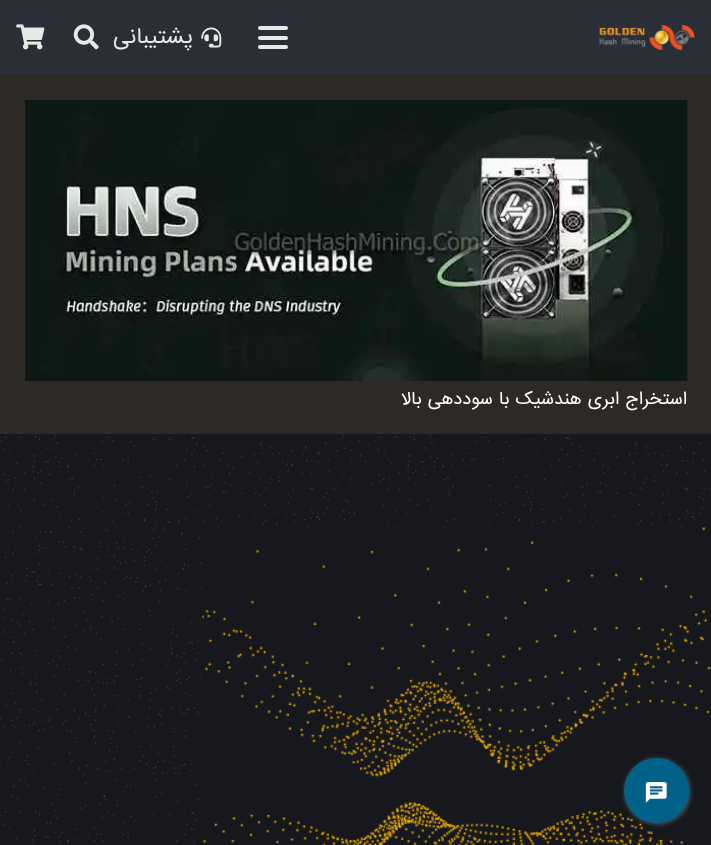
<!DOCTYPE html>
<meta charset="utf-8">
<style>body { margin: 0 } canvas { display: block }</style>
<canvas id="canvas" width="711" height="845"></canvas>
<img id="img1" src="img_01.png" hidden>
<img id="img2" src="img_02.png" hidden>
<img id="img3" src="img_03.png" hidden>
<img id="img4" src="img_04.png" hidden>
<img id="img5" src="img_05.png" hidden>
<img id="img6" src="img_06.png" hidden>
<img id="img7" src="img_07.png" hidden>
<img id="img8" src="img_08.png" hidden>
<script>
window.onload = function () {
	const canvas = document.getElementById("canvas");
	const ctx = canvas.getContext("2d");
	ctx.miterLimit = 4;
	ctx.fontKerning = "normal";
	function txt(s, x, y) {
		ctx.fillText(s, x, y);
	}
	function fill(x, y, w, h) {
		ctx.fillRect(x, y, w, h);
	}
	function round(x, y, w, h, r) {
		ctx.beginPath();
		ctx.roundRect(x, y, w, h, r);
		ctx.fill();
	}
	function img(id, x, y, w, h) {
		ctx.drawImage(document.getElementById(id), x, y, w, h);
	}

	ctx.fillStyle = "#2E2925";
	fill(0, 0, 711, 845);
	ctx.fillStyle = "#2A2622";
	fill(0, 75, 711, 1);
	ctx.fillStyle = "#2A2E37";
	fill(0, 0, 711, 75);
	img("img1", 599, 25, 96, 25);
	ctx.fillStyle = "#E8E8E8";
	round(258, 36, 30, 4, 2);
	round(258, 26, 30, 4, 2);
	round(258, 45, 30, 4, 2);
	img("img2", 201, 27, 21, 21);
	img("img3", 73, 24, 26, 26);
	img("img4", 16, 24, 29, 26);
	img("img5", 25, 100, 663, 281);
	ctx.fillStyle = "#16181D";
	fill(0, 434, 711, 411);
	img("img6", 0, 434, 710, 411);
	img("img7", 202, 527, 509, 318);
	ctx.fillStyle = "rgba(101, 119, 134, 0.75)";
	ctx.filter = "blur(2.5px)";
	ctx.beginPath();
	ctx.roundRect(625, 759, 65, 65, 32.5);
	ctx.fill();
	ctx.filter = "none";
	ctx.fillStyle = "#006289";
	ctx.beginPath();
	ctx.arc(656.5, 790.5, 32.5, 0, Math.PI * 2);
	ctx.fill();
	img("img8", 645, 782, 22, 21);
	ctx.direction = "rtl";
	ctx.font = "20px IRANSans";
	ctx.fillStyle = "#E8E8E8";
	txt("پشتیبانی", 193, 43);
	ctx.font = "16.25px IRANSans";
	ctx.fillStyle = "#FFFFFF";
	txt("استخراج ابری هندشیک با سوددهی بالا", 687, 404);
};
</script>
